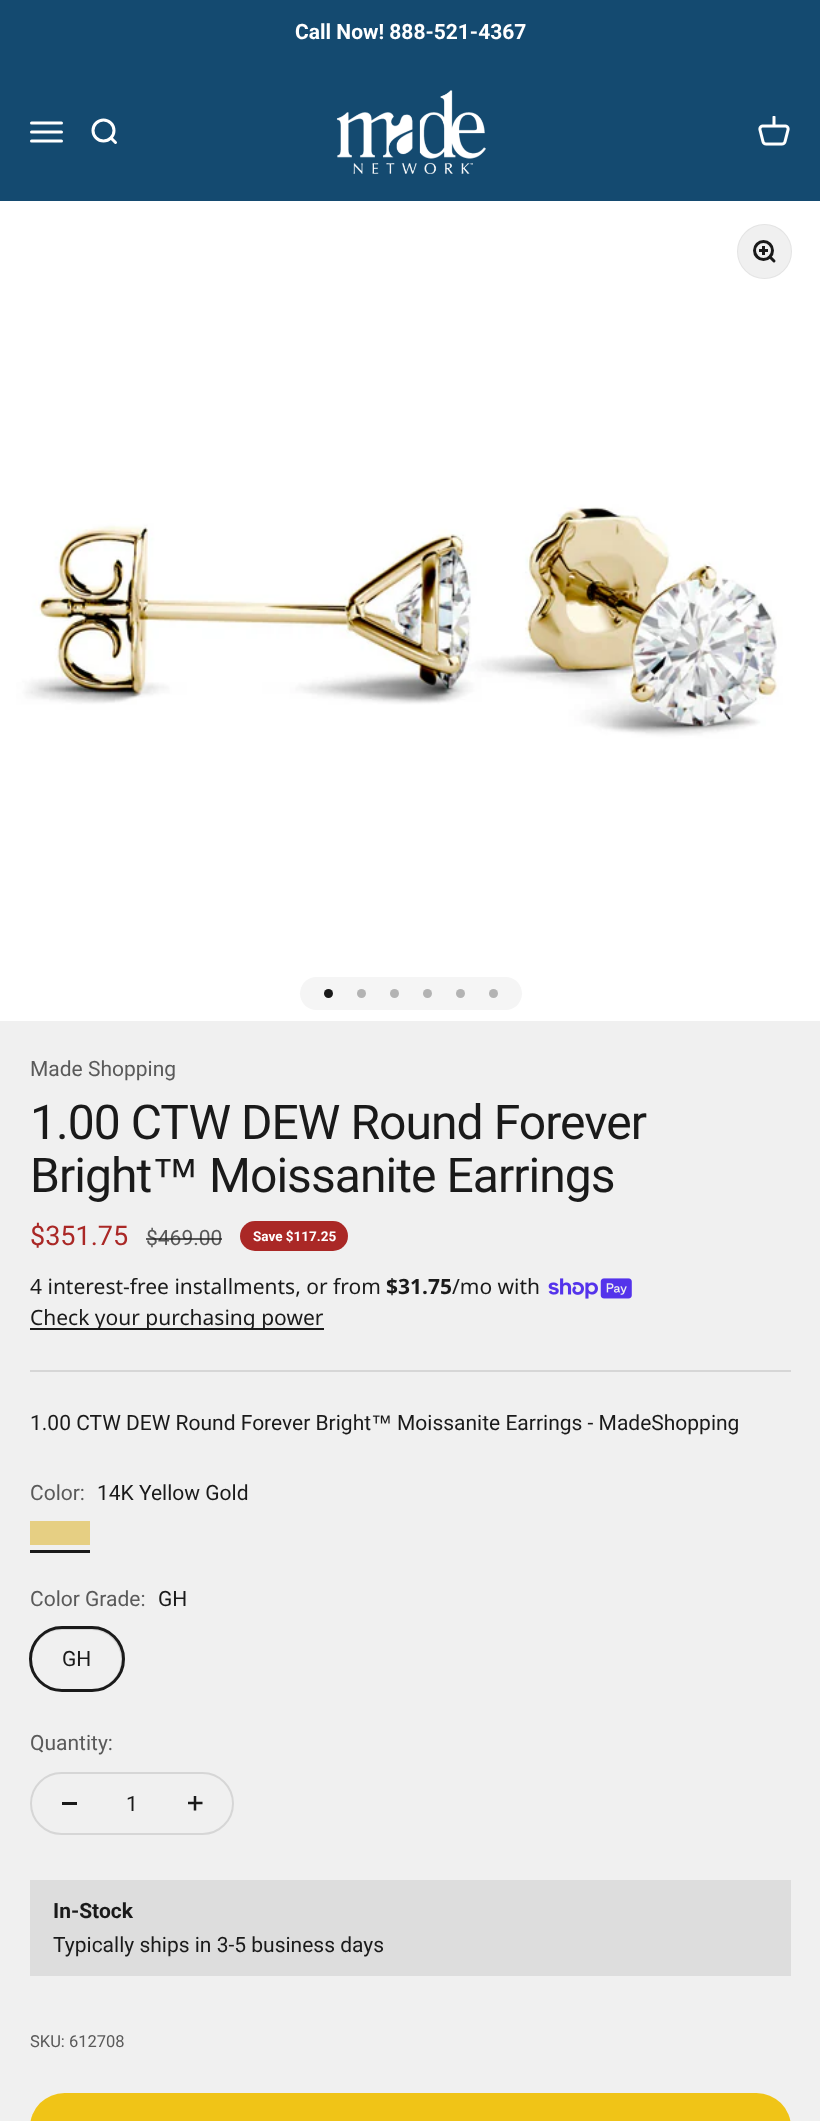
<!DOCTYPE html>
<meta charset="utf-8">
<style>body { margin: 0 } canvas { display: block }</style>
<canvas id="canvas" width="820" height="2121"></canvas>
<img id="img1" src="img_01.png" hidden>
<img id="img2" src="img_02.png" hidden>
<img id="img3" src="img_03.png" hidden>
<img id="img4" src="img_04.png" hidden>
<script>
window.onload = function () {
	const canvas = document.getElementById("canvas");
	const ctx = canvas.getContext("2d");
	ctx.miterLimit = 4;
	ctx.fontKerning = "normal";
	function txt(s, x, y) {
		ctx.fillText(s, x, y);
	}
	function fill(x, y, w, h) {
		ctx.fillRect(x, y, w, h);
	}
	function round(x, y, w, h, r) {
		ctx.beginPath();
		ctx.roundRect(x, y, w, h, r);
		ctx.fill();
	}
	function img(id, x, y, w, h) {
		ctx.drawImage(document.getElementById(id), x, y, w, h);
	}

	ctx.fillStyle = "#F0F0F0";
	fill(0, 0, 820, 2121);
	ctx.fillStyle = "#144A70";
	fill(0, 0, 820, 201);
	ctx.beginPath();
	ctx.moveTo(31.5, 123);
	ctx.lineTo(61.5, 123);
	ctx.moveTo(31.5, 132);
	ctx.lineTo(61.5, 132);
	ctx.moveTo(31.5, 141);
	ctx.lineTo(61.5, 141);
	ctx.strokeStyle = "#FFFFFF";
	ctx.lineWidth = 3;
	ctx.lineCap = "round";
	ctx.stroke();
	ctx.beginPath();
	ctx.arc(103.5, 130.5, 10.5, 0, Math.PI * 2);
	ctx.stroke();
	ctx.beginPath();
	ctx.moveTo(111, 138);
	ctx.lineTo(115.5, 142.5);
	ctx.lineJoin = "round";
	ctx.stroke();
	img("img1", 336, 90, 150, 84);
	img("img2", 758, 116, 32, 30);
	img("img3", 0, 201, 820, 820);
	ctx.beginPath();
	ctx.arc(764.5, 251.5, 26.5, 0, Math.PI * 2);
	ctx.strokeStyle = "#E4E4E4";
	ctx.lineWidth = 2;
	ctx.stroke();
	ctx.fillStyle = "#F0F0F0";
	ctx.beginPath();
	ctx.arc(764.5, 251.5, 26.5, 0, Math.PI * 2);
	ctx.fill();
	ctx.beginPath();
	ctx.arc(763.5, 250.5, 9, 0, Math.PI * 2);
	ctx.strokeStyle = "#1A1A1A";
	ctx.lineWidth = 3;
	ctx.stroke();
	ctx.beginPath();
	ctx.moveTo(770, 257);
	ctx.lineTo(774, 261);
	ctx.stroke();
	ctx.beginPath();
	ctx.moveTo(763.5, 246);
	ctx.lineTo(763.5, 255);
	ctx.moveTo(759, 250.5);
	ctx.lineTo(768, 250.5);
	ctx.lineCap = "butt";
	ctx.lineJoin = "miter";
	ctx.stroke();
	ctx.fillStyle = "#F5F5F5";
	round(300, 977, 222, 33, 16.5);
	ctx.fillStyle = "#1A1A1A";
	ctx.beginPath();
	ctx.arc(328.5, 993.5, 4.5, 0, Math.PI * 2);
	ctx.fill();
	ctx.fillStyle = "#B3B3B3";
	ctx.beginPath();
	ctx.arc(361.5, 993.5, 4.5, 0, Math.PI * 2);
	ctx.fill();
	ctx.beginPath();
	ctx.arc(394.5, 993.5, 4.5, 0, Math.PI * 2);
	ctx.fill();
	ctx.beginPath();
	ctx.arc(427.5, 993.5, 4.5, 0, Math.PI * 2);
	ctx.fill();
	ctx.beginPath();
	ctx.arc(460.5, 993.5, 4.5, 0, Math.PI * 2);
	ctx.fill();
	ctx.beginPath();
	ctx.arc(493.5, 993.5, 4.5, 0, Math.PI * 2);
	ctx.fill();
	ctx.fillStyle = "#AA2826";
	round(240, 1221, 108, 30, 15);
	img("img4", 548, 1278, 84, 21);
	ctx.fillStyle = "#1A1A1A";
	fill(30, 1328, 294, 2);
	ctx.fillStyle = "#D6D6D6";
	fill(30, 1370, 761, 2);
	ctx.fillStyle = "#E6CF83";
	fill(30, 1521, 60, 24);
	ctx.fillStyle = "#1A1A1A";
	fill(30, 1550, 60, 3);
	ctx.beginPath();
	ctx.roundRect(31, 1629, 91, 61, 30.5);
	ctx.strokeStyle = "#D6D6D6";
	ctx.lineWidth = 2;
	ctx.stroke();
	ctx.beginPath();
	ctx.roundRect(30.5, 1627.5, 93, 63, 31.5);
	ctx.strokeStyle = "#1A1A1A";
	ctx.lineWidth = 3;
	ctx.stroke();
	ctx.beginPath();
	ctx.roundRect(31, 1773, 202, 61, 30.5);
	ctx.strokeStyle = "#D6D6D6";
	ctx.lineWidth = 2;
	ctx.stroke();
	fill(62, 1802, 15, 3);
	ctx.save();
	ctx.beginPath();
	ctx.rect(188, 1796, 15, 15);
	ctx.clip();
	ctx.beginPath();
	ctx.moveTo(195, 1795.5);
	ctx.lineTo(195, 1810.5);
	ctx.moveTo(187.5, 1803);
	ctx.lineTo(202.5, 1803);
	ctx.strokeStyle = "#1A1A1A";
	ctx.lineWidth = 2.5;
	ctx.stroke();
	ctx.restore();
	ctx.fillStyle = "#DDDDDD";
	fill(30, 1880, 761, 96);
	ctx.fillStyle = "#F0C417";
	round(30, 2093, 761, 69, 40.5);
	ctx.font = "bold 21px Roboto";
	ctx.fillStyle = "#FFFFFF";
	txt("Call Now! 888-521-4367", 295, 39);
	ctx.font = "21px Roboto";
	ctx.fillStyle = "#5A5A5A";
	txt("Made Shopping", 30, 1076);
	ctx.letterSpacing = "-0.95px";
	ctx.font = "48px Roboto";
	ctx.fillStyle = "#1A1A1A";
	txt("1.00 CTW DEW Round Forever", 30, 1139);
	txt("Bright", 30, 1192);
	ctx.font = "48px Liberation Sans";
	txt("™", 151, 1192);
	ctx.font = "48px Roboto";
	txt("Moissanite Earrings", 209, 1192);
	ctx.letterSpacing = "0px";
	ctx.font = "27px Roboto";
	ctx.fillStyle = "#AA2826";
	txt("$351.75", 30, 1245);
	ctx.font = "21px Roboto";
	ctx.fillStyle = "#5A5A5A";
	txt("$469.00", 146, 1245);
	ctx.fillStyle = "rgba(26, 26, 26, 0.7)";
	fill(146, 1238, 76, 2);
	ctx.font = "bold 13.5px Roboto";
	ctx.fillStyle = "#FFFFFF";
	txt("Save $117.25", 253, 1241);
	ctx.font = "21px Noto Sans";
	ctx.fillStyle = "#1A1A1A";
	txt("4 interest-free installments, or from", 30, 1294);
	ctx.font = "bold 21px Noto Sans";
	txt("$31.75", 386, 1294);
	ctx.font = "21px Noto Sans";
	txt("/mo with", 452, 1294);
	txt("Check your purchasing power", 30, 1325);
	ctx.font = "21px Roboto";
	txt("1.00 CTW DEW Round Forever Bright", 30, 1430);
	ctx.font = "21px Liberation Sans";
	txt("™", 371, 1430);
	ctx.font = "21px Roboto";
	txt("Moissanite Earrings - MadeShopping", 397, 1430);
	ctx.fillStyle = "#5A5A5A";
	txt("Color:", 30, 1500);
	ctx.fillStyle = "#1A1A1A";
	txt("14K Yellow Gold", 97, 1500);
	ctx.fillStyle = "#5A5A5A";
	txt("Color Grade:", 30, 1606);
	ctx.fillStyle = "#1A1A1A";
	txt("GH", 158, 1606);
	txt("GH", 62, 1666);
	ctx.fillStyle = "#5A5A5A";
	txt("Quantity:", 30, 1750);
	ctx.fillStyle = "#1A1A1A";
	txt("1", 126, 1811);
	ctx.font = "bold 21px Roboto";
	txt("In-Stock", 53, 1918);
	ctx.font = "21px Roboto";
	txt("Typically ships in 3-5 business days", 53, 1952);
	ctx.font = "16.5px Roboto";
	ctx.fillStyle = "#5A5A5A";
	txt("SKU: 612708", 30, 2047);
};
</script>
